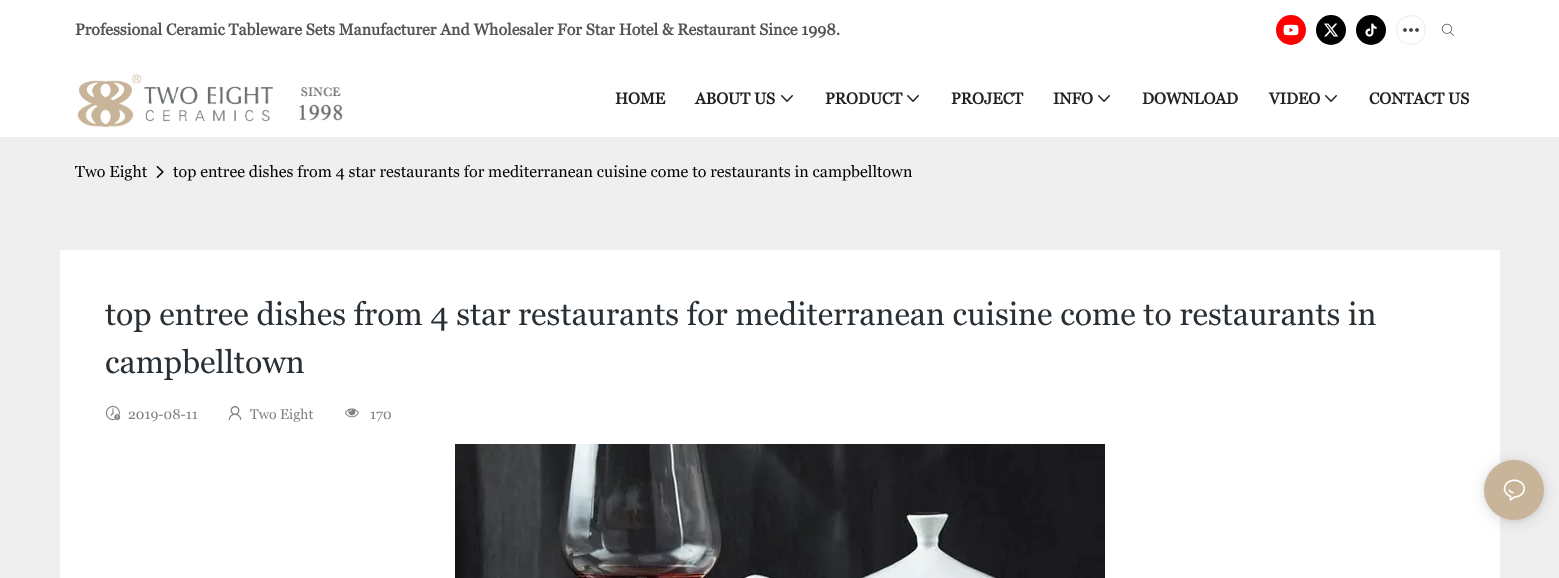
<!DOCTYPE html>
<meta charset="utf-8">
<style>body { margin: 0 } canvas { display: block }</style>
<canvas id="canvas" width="1559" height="578"></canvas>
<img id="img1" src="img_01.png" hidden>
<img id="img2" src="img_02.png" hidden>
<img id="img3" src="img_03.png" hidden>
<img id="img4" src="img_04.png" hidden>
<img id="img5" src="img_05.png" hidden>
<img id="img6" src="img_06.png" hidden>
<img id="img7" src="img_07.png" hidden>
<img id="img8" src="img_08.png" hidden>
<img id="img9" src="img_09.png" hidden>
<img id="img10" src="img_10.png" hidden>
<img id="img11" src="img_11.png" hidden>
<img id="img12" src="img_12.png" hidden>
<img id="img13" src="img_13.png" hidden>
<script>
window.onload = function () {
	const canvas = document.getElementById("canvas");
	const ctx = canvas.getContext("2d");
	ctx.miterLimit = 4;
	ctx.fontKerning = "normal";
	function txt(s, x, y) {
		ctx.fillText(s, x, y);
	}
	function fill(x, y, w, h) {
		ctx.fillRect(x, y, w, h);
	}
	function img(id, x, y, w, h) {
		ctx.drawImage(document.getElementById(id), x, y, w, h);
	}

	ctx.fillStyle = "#EFEFEF";
	fill(0, 0, 1559, 578);
	ctx.fillStyle = "#FFFFFF";
	fill(0, 0, 1559, 137);
	ctx.fillStyle = "#FF0000";
	ctx.beginPath();
	ctx.arc(1291, 30, 15, 0, Math.PI * 2);
	ctx.fill();
	img("img1", 1283, 24, 16, 12);
	ctx.fillStyle = "#000000";
	ctx.beginPath();
	ctx.arc(1331, 30, 15, 0, Math.PI * 2);
	ctx.fill();
	img("img2", 1324, 23, 15, 14);
	ctx.fillStyle = "#010101";
	ctx.beginPath();
	ctx.arc(1371, 30, 15, 0, Math.PI * 2);
	ctx.fill();
	img("img3", 1365, 23, 12, 14);
	ctx.beginPath();
	ctx.arc(1411, 30, 14.5, 0, Math.PI * 2);
	ctx.strokeStyle = "#EBEBEB";
	ctx.stroke();
	img("img4", 1403, 28, 16, 4);
	img("img5", 1441, 23, 13, 13);
	img("img6", 77, 74, 266, 53);
	img("img7", 781, 95, 12, 7);
	img("img7", 907, 95, 12, 7);
	img("img7", 1098, 95, 12, 7);
	img("img7", 1325, 95, 12, 7);
	img("img8", 156, 166, 8, 12);
	ctx.fillStyle = "#FFFFFF";
	fill(60, 250, 1440, 328);
	img("img9", 105, 405, 16, 16);
	img("img10", 228, 406, 14, 14);
	img("img11", 345, 408, 14, 10);
	img("img12", 455, 444, 650, 134);
	ctx.fillStyle = "rgba(0, 0, 0, 0.12)";
	ctx.filter = "blur(8px)";
	ctx.beginPath();
	ctx.roundRect(1484, 462, 60, 60, 30);
	ctx.fill();
	ctx.filter = "none";
	ctx.fillStyle = "rgba(0, 0, 0, 0.06)";
	ctx.filter = "blur(2px)";
	ctx.beginPath();
	ctx.roundRect(1484, 461, 60, 60, 30);
	ctx.fill();
	ctx.filter = "none";
	ctx.fillStyle = "#C8B499";
	ctx.beginPath();
	ctx.arc(1514, 490, 30, 0, Math.PI * 2);
	ctx.fill();
	img("img13", 1503, 479, 22, 22);
	ctx.font = "bold 16px Georgia";
	ctx.fillStyle = "#555555";
	txt("Professional Ceramic Tableware Sets Manufacturer And Wholesaler For Star Hotel & Restaurant Since 1998.", 75, 35);
	ctx.fillStyle = "#222222";
	txt("HOME", 615, 104);
	txt("ABOUT US", 695, 104);
	txt("PRODUCT", 825, 104);
	txt("PROJECT", 951, 104);
	txt("INFO", 1053, 104);
	txt("DOWNLOAD", 1142, 104);
	txt("VIDEO", 1269, 104);
	txt("CONTACT US", 1369, 104);
	ctx.font = "16px Georgia";
	ctx.fillStyle = "#000000";
	txt("Two Eight", 75, 177);
	txt("top entree dishes from 4 star restaurants for mediterranean cuisine come to restaurants in campbelltown", 173, 177);
	ctx.font = "32px Georgia";
	ctx.fillStyle = "#283036";
	txt("top entree dishes from 4 star restaurants for mediterranean cuisine come to restaurants in", 105, 325);
	txt("campbelltown", 105, 373);
	ctx.font = "14px Georgia";
	ctx.fillStyle = "#7E8386";
	txt("2019-08-11", 128, 419);
	txt("Two Eight", 250, 419);
	txt("170", 370, 419);
};
</script>
